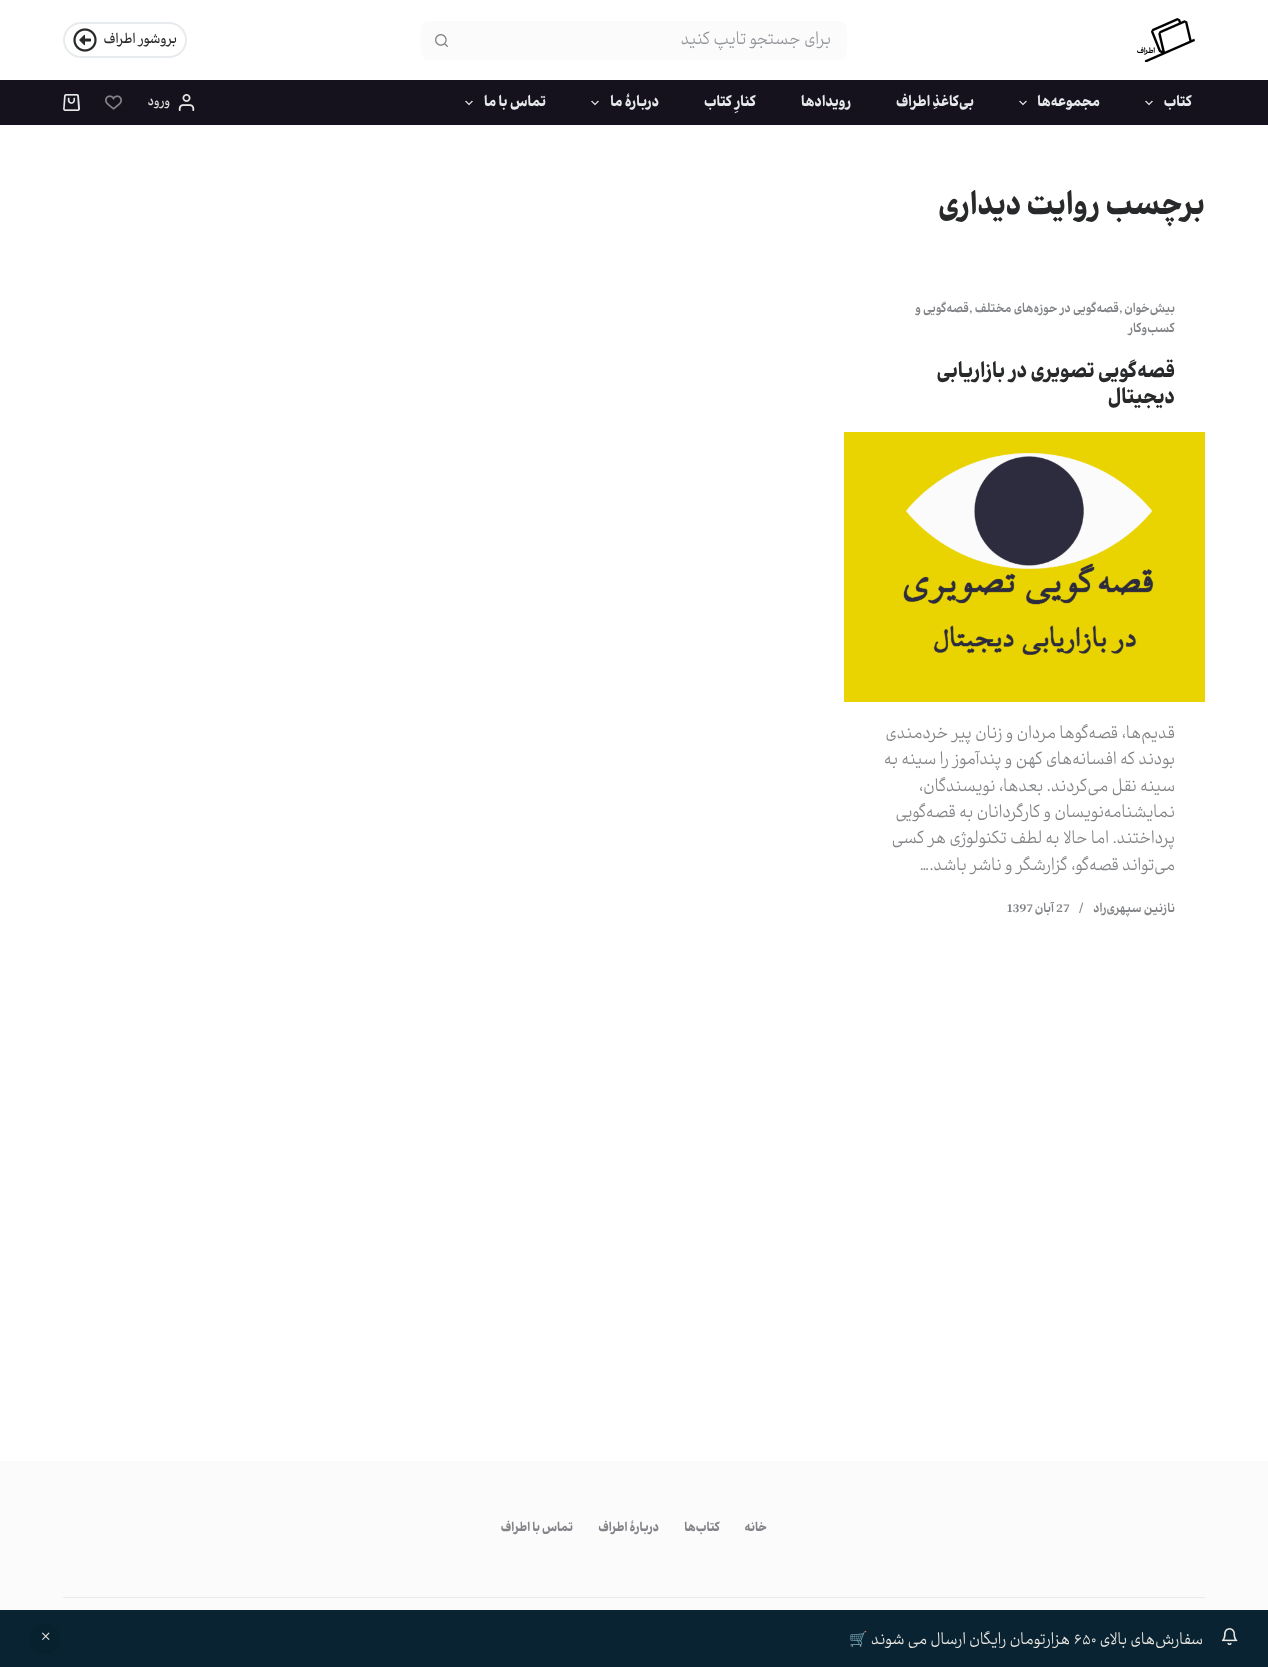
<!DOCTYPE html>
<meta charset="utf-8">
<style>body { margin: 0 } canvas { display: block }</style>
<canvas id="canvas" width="1268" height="1667"></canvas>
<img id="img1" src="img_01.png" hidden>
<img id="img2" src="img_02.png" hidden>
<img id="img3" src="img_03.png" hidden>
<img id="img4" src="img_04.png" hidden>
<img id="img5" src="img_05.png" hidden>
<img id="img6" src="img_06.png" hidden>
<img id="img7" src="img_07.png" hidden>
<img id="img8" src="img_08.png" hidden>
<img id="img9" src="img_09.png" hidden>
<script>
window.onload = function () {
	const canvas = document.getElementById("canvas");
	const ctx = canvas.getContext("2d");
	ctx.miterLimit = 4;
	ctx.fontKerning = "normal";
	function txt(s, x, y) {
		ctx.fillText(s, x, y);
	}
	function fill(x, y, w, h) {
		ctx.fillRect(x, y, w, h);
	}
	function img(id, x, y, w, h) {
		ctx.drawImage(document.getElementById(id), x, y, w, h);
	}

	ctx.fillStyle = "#FFFFFF";
	fill(0, 0, 1268, 1667);
	img("img1", 1137, 18, 58, 44);
	ctx.fillStyle = "#FBFBFC";
	ctx.beginPath();
	ctx.roundRect(460, 21, 387, 39, [0, 8, 8, 0]);
	ctx.fill();
	ctx.beginPath();
	ctx.roundRect(421, 21, 39, 39, [8, 0, 0, 8]);
	ctx.fill();
	img("img2", 435, 34, 13, 13);
	ctx.beginPath();
	ctx.roundRect(64, 23, 122, 34, 17);
	ctx.strokeStyle = "#E8EBED";
	ctx.lineWidth = 2;
	ctx.stroke();
	img("img3", 73, 28, 24, 24);
	ctx.fillStyle = "#16121D";
	fill(0, 80, 1268, 45);
	img("img4", 1145, 100, 8, 6);
	img("img4", 1019, 100, 8, 6);
	img("img4", 591, 100, 8, 6);
	img("img4", 465, 100, 8, 6);
	img("img5", 178, 94, 17, 17);
	img("img6", 105, 95, 17, 15);
	img("img7", 63, 94, 17, 17);
	img("img8", 844, 432, 361, 270);
	ctx.fillStyle = "#FBFBFC";
	fill(0, 1461, 1268, 149);
	ctx.fillStyle = "#E8EBED";
	fill(63, 1597, 1142, 1);
	ctx.fillStyle = "#092332";
	fill(0, 1610, 1268, 57);
	img("img9", 1221, 1628, 17, 18);
	ctx.fillStyle = "#08212F";
	ctx.beginPath();
	ctx.arc(45, 1639, 15, 0, Math.PI * 2);
	ctx.fill();
	ctx.direction = "rtl";
	ctx.font = "italic 16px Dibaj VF";
	ctx.fillStyle = "#93969B";
	txt("برای جستجو تایپ کنید", 831, 44);
	ctx.font = "italic 500 13px Dibaj VF";
	ctx.fillStyle = "#28292A";
	txt("بروشور اطراف", 177, 43);
	ctx.font = "italic bold 14px Dibaj VF";
	ctx.fillStyle = "#E7EAED";
	txt("کتاب", 1192, 106);
	txt("مجموعه‌ها", 1100, 106);
	txt("بی‌کاغذِ اطراف", 974, 106);
	txt("رویدادها", 851, 106);
	txt("کنارِ کتاب", 756, 106);
	txt("دربارۀ ما", 659, 106);
	txt("تماس با ما", 546, 106);
	ctx.font = "italic 500 12px Dibaj VF";
	ctx.fillStyle = "#E5E0E0";
	txt("ورود", 170, 105);
	ctx.font = "italic bold 30px Dibaj VF";
	ctx.fillStyle = "#28292A";
	txt("برچسب", 1205, 214);
	txt("روایت دیداری", 1100, 214);
	ctx.font = "italic 600 12px Dibaj VF";
	ctx.fillStyle = "#828487";
	txt("بیش‌خوان", 1175, 312);
	ctx.direction = "ltr";
	txt(",", 1119, 312);
	ctx.direction = "rtl";
	txt("قصه‌گویی در حوزه‌های مختلف", 1119, 312);
	ctx.direction = "ltr";
	txt(",", 969, 312);
	ctx.direction = "rtl";
	txt("قصه‌گویی و", 969, 312);
	txt("کسب‌وکار", 1175, 332);
	ctx.font = "italic bold 20px Dibaj VF";
	ctx.fillStyle = "#28292A";
	txt("قصه‌گویی تصویری در بازاریابی", 1175, 377);
	txt("دیجیتال", 1175, 403);
	ctx.font = "italic 16px Dibaj VF";
	ctx.fillStyle = "#828487";
	txt("قدیم‌ها، قصه‌گوها مردان و زنان پیر خردمندی", 1175, 738);
	txt("بودند که افسانه‌های کهن و پندآموز را سینه به", 1175, 764);
	txt("سینه نقل می‌کردند. بعدها، نویسندگان،", 1175, 791);
	txt("نمایشنامه‌نویسان و کارگردانان به قصه‌گویی", 1175, 817);
	txt("پرداختند. اما حالا به لطف تکنولوژی هر کسی", 1175, 843);
	txt("می‌تواند قصه‌گو‌، گزارشگر و ناشر باشد.…", 1175, 870);
	ctx.font = "italic 600 12px Dibaj VF";
	txt("نازنین سپهری‌راد", 1175, 912);
	ctx.direction = "ltr";
	txt("/", 1079, 911);
	txt("27", 1056, 912);
	ctx.direction = "rtl";
	txt("آبان", 1054, 912);
	ctx.direction = "ltr";
	txt("1397", 1007, 912);
	ctx.direction = "rtl";
	ctx.font = "italic bold 12px Dibaj VF";
	txt("خانه", 767, 1531);
	txt("کتاب‌ها", 720, 1531);
	txt("دربارۀ اطراف", 659, 1531);
	txt("تماس با اطراف", 573, 1531);
	ctx.font = "italic 15px Dibaj VF";
	ctx.fillStyle = "#EBE7E1";
	txt("سفارش‌های بالای", 1203, 1644);
	ctx.direction = "ltr";
	txt("۶۵۰", 1074, 1644);
	ctx.direction = "rtl";
	txt("هزارتومان رایگان ارسال می شوند", 1070, 1644);
	ctx.font = "15px Noto Color Emoji";
	txt("🛒", 868, 1644);
	ctx.direction = "ltr";
	ctx.font = "italic 17px Dibaj VF";
	txt("×", 41, 1642);
};
</script>
